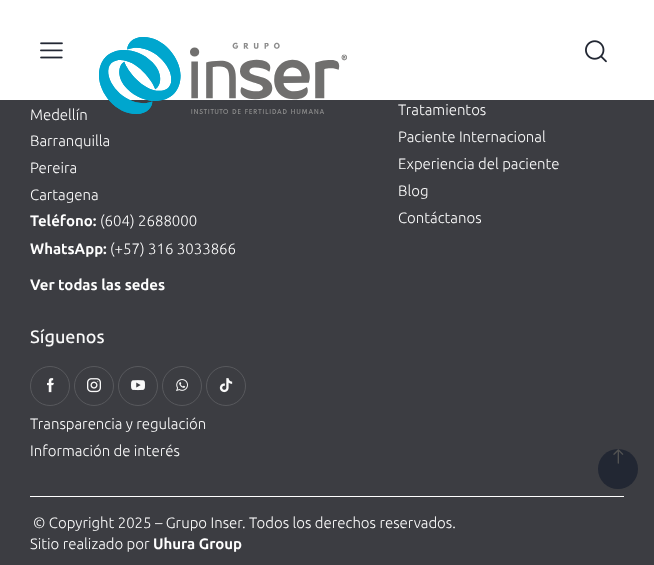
<!DOCTYPE html>
<meta charset="utf-8">
<style>body { margin: 0 } canvas { display: block }</style>
<canvas id="canvas" width="654" height="565"></canvas>
<img id="img1" src="img_01.png" hidden>
<img id="img2" src="img_02.png" hidden>
<img id="img3" src="img_03.png" hidden>
<img id="img4" src="img_04.png" hidden>
<img id="img5" src="img_05.png" hidden>
<img id="img6" src="img_06.png" hidden>
<img id="img7" src="img_07.png" hidden>
<img id="img8" src="img_08.png" hidden>
<img id="img9" src="img_09.png" hidden>
<script>
window.onload = function () {
	const canvas = document.getElementById("canvas");
	const ctx = canvas.getContext("2d");
	ctx.miterLimit = 4;
	ctx.fontKerning = "normal";
	function txt(s, x, y) {
		ctx.fillText(s, x, y);
	}
	function fill(x, y, w, h) {
		ctx.fillRect(x, y, w, h);
	}
	function img(id, x, y, w, h) {
		ctx.drawImage(document.getElementById(id), x, y, w, h);
	}

	ctx.fillStyle = "#3C3D42";
	fill(0, 0, 654, 565);
	ctx.fillStyle = "#FFFFFF";
	fill(0, 0, 654, 100);
	img("img1", 40, 42, 23, 17);
	img("img2", 99, 37, 248, 77);
	img("img3", 585, 40, 22, 23);
	ctx.beginPath();
	ctx.arc(50, 386, 19.5, 0, Math.PI * 2);
	ctx.strokeStyle = "#58595D";
	ctx.stroke();
	img("img4", 47, 378, 7, 15);
	ctx.beginPath();
	ctx.arc(94, 386, 19.5, 0, Math.PI * 2);
	ctx.stroke();
	img("img5", 87, 378, 14, 15);
	ctx.beginPath();
	ctx.arc(138, 386, 19.5, 0, Math.PI * 2);
	ctx.stroke();
	img("img6", 131, 380, 14, 11);
	ctx.beginPath();
	ctx.arc(182, 386, 19.5, 0, Math.PI * 2);
	ctx.stroke();
	img("img7", 176, 379, 12, 13);
	ctx.beginPath();
	ctx.arc(226, 386, 19.5, 0, Math.PI * 2);
	ctx.stroke();
	img("img8", 219, 378, 14, 15);
	fill(30, 496, 594, 1);
	ctx.fillStyle = "#222733";
	ctx.beginPath();
	ctx.arc(618, 469, 20, 0, Math.PI * 2);
	ctx.fill();
	img("img9", 613, 449, 11, 15);
	ctx.font = "300 15px Ubuntu";
	ctx.fillStyle = "#FFFFFF";
	txt("Medellín", 30, 120);
	txt("Barranquilla", 30, 146);
	txt("Pereira", 30, 173);
	txt("Cartagena", 30, 200);
	ctx.font = "bold 15px Ubuntu";
	txt("Teléfono:", 30, 226);
	ctx.font = "300 15px Ubuntu";
	txt("(604) 2688000", 100, 226);
	ctx.font = "bold 15px Ubuntu";
	txt("WhatsApp:", 30, 254);
	ctx.font = "300 15px Ubuntu";
	txt("(+57) 316 3033866", 110, 254);
	ctx.font = "bold 15px Ubuntu";
	txt("Ver todas las sedes", 30, 290);
	ctx.font = "300 15px Ubuntu";
	txt("Tratamientos", 398, 115);
	txt("Paciente Internacional", 398, 142);
	txt("Experiencia del paciente", 398, 169);
	txt("Blog", 398, 196);
	txt("Contáctanos", 398, 223);
	ctx.font = "500 18px Ubuntu";
	ctx.fillStyle = "#F9F9F9";
	txt("Síguenos", 30, 343);
	ctx.font = "300 15px Ubuntu";
	ctx.fillStyle = "#FFFFFF";
	txt("Transparencia y regulación", 30, 429);
	txt("Información de interés", 30, 456);
	txt("© Copyright 2025 – Grupo Inser. Todos los derechos reservados.", 33, 528);
	txt("Sitio realizado por", 30, 549);
	ctx.font = "bold 15px Ubuntu";
	txt("Uhura Group", 153, 549);
};
</script>
